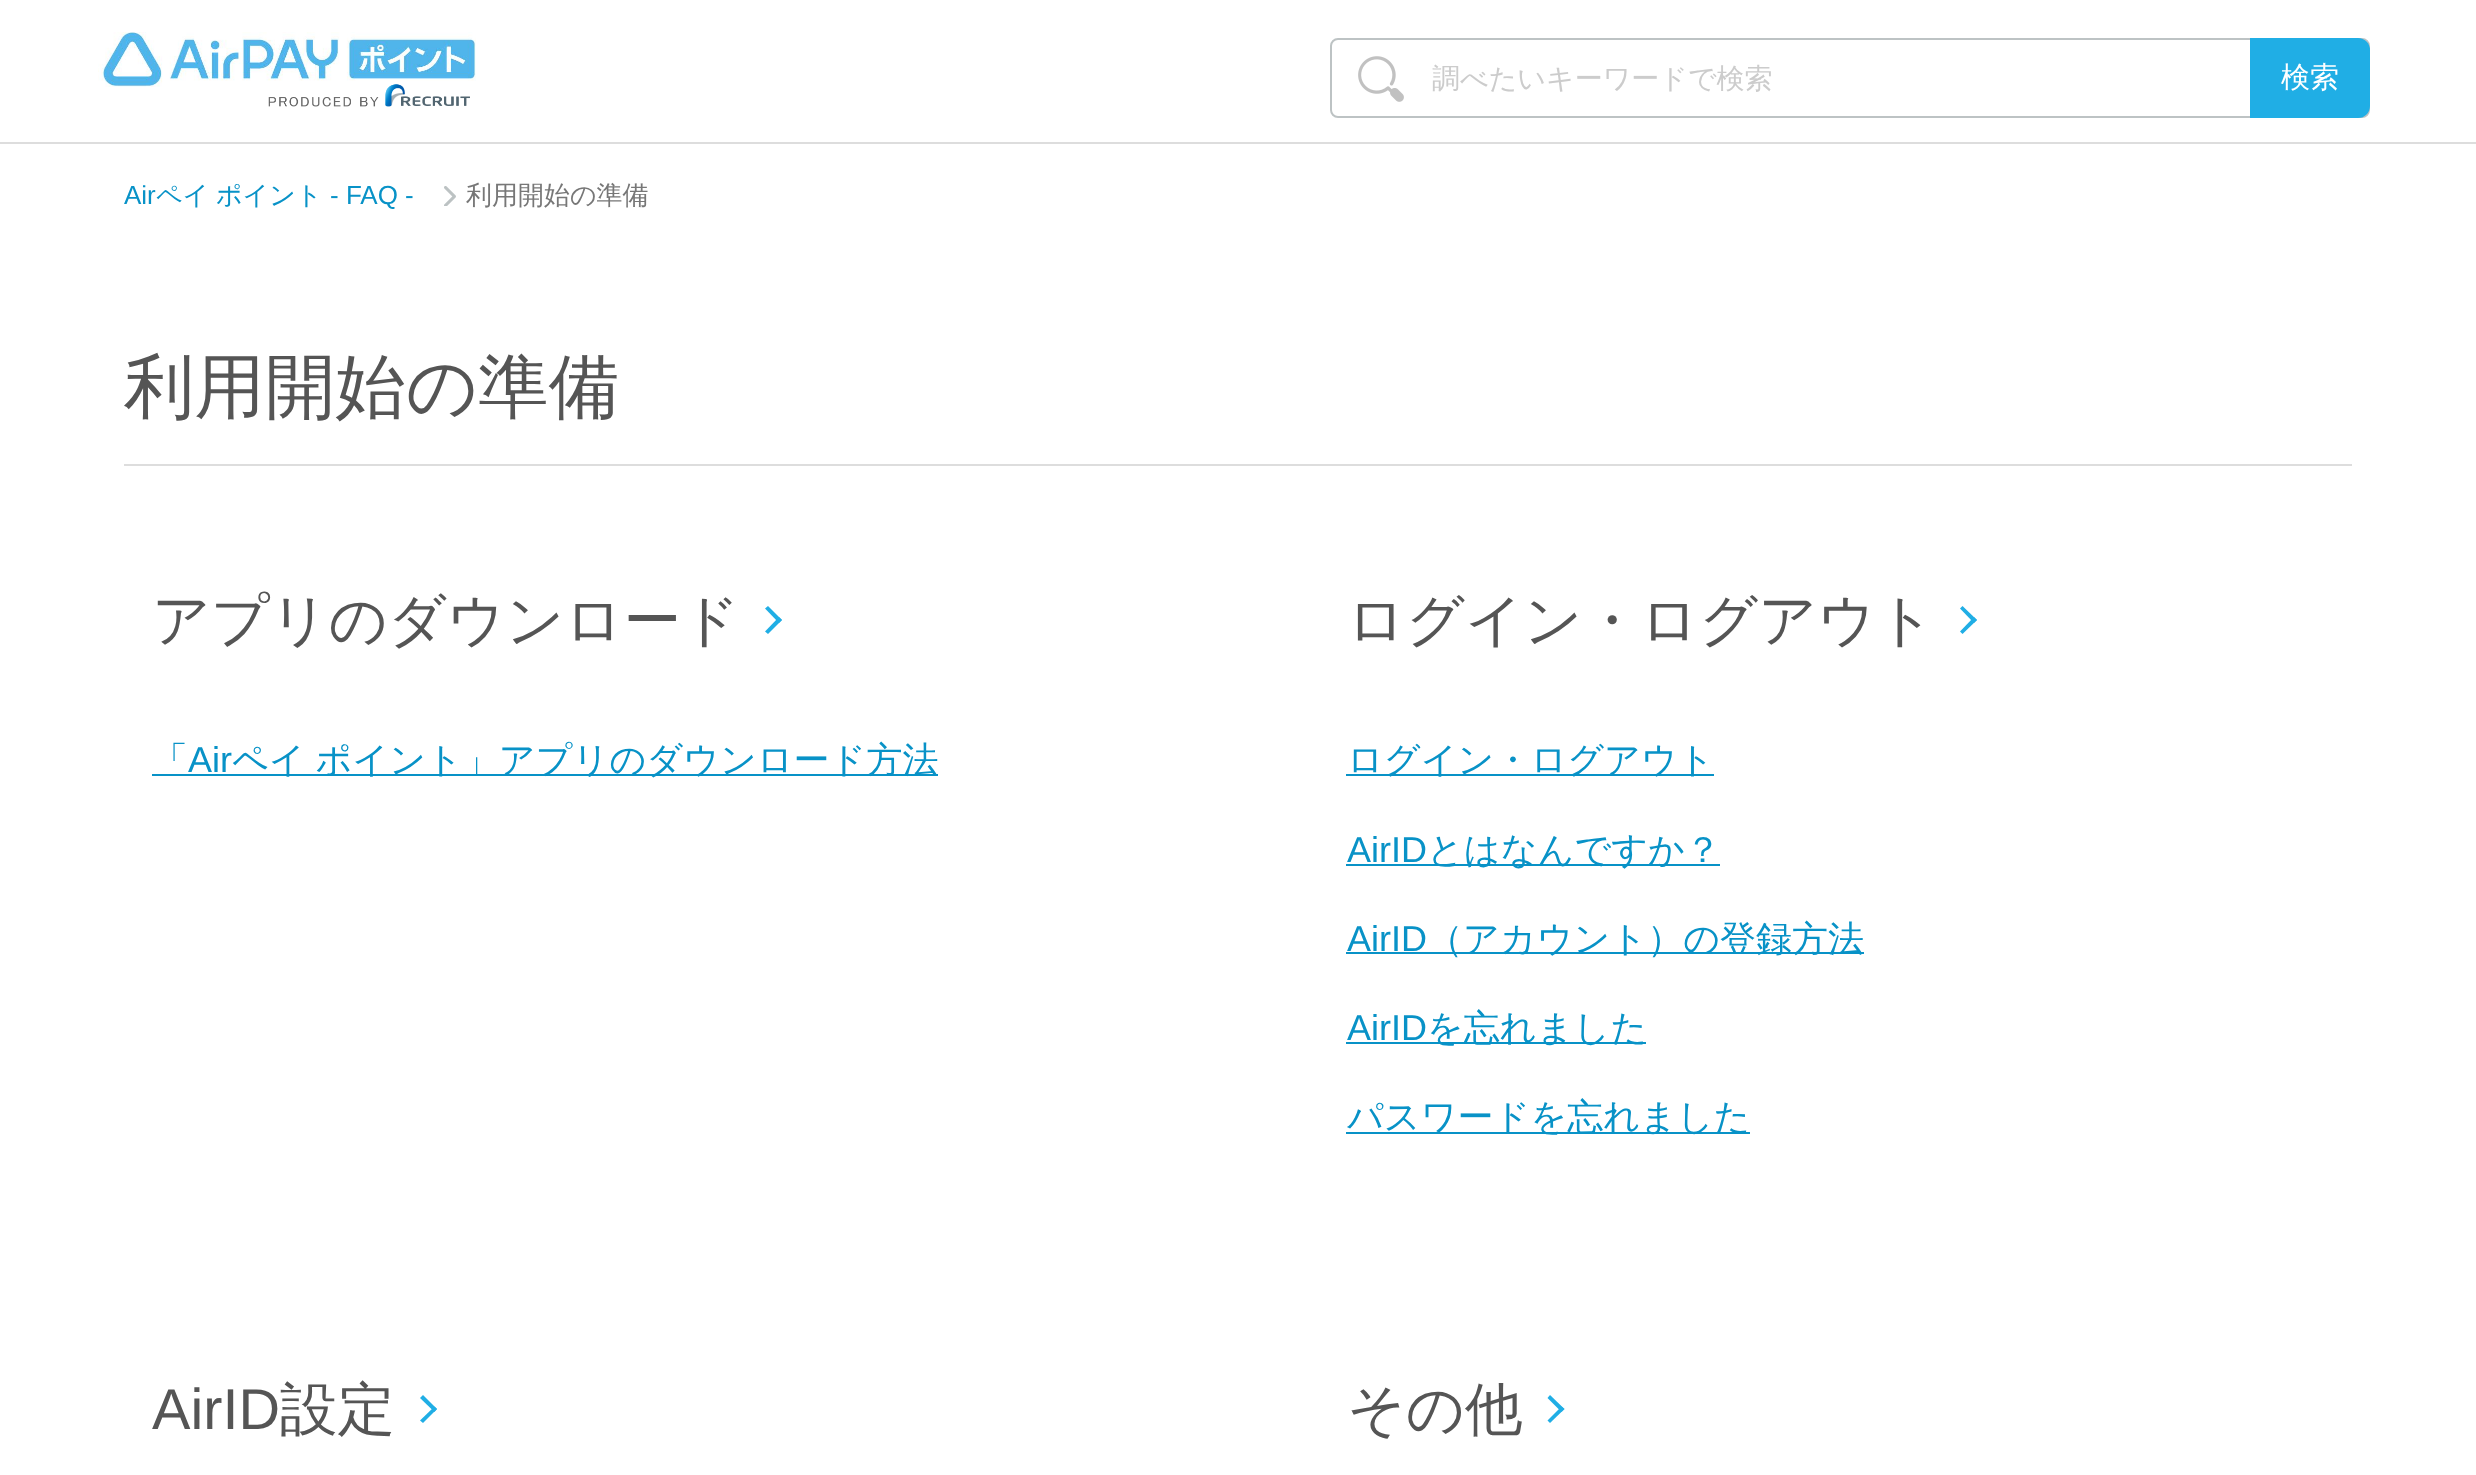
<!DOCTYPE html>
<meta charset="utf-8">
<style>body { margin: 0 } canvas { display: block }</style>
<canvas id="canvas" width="2476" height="1475"></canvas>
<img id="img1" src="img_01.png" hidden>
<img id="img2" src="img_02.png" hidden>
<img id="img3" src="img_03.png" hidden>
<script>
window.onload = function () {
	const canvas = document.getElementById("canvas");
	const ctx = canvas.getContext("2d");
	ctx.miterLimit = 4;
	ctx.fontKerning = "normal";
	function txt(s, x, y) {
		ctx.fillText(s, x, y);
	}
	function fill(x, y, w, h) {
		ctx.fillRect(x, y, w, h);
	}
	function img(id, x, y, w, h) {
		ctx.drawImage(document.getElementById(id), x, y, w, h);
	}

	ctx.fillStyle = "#FFFFFF";
	fill(0, 0, 2476, 1475);
	img("img1", 98, 32, 378, 75);
	ctx.fillStyle = "#DDDDDD";
	fill(0, 142, 2476, 2);
	ctx.beginPath();
	ctx.roundRect(1331, 39, 1038, 78, 7);
	ctx.strokeStyle = "#BDC3C4";
	ctx.lineWidth = 2;
	ctx.stroke();
	img("img2", 1358, 56, 46, 46);
	ctx.fillStyle = "#20AEE5";
	ctx.beginPath();
	ctx.roundRect(2250, 38, 120, 80, [0, 12, 12, 0]);
	ctx.fill();
	img("img3", 444, 186, 12, 20);
	ctx.fillStyle = "#DDDDDD";
	fill(124, 464, 2228, 2);
	ctx.fillStyle = "#20AEE5";
	ctx.beginPath();
	ctx.moveTo(768, 606);
	ctx.lineTo(782, 620);
	ctx.lineTo(779, 623);
	ctx.lineTo(765, 608.5);
	ctx.closePath();
	ctx.fill();
	ctx.beginPath();
	ctx.moveTo(779, 617);
	ctx.lineTo(782, 620);
	ctx.lineTo(768, 634);
	ctx.lineTo(765, 631.5);
	ctx.closePath();
	ctx.fill();
	ctx.fillStyle = "#0892C7";
	fill(152, 774, 786, 2);
	ctx.fillStyle = "#20AEE5";
	ctx.beginPath();
	ctx.moveTo(1962.5, 606);
	ctx.lineTo(1977, 620);
	ctx.lineTo(1974, 623);
	ctx.lineTo(1960, 608.5);
	ctx.closePath();
	ctx.fill();
	ctx.beginPath();
	ctx.moveTo(1974, 617);
	ctx.lineTo(1977, 620);
	ctx.lineTo(1962.5, 634);
	ctx.lineTo(1960, 631.5);
	ctx.closePath();
	ctx.fill();
	ctx.fillStyle = "#0892C7";
	fill(1346, 774, 368, 2);
	fill(1346, 864, 374, 2);
	fill(1346, 952, 518, 2);
	fill(1346, 1042, 300, 2);
	fill(1346, 1132, 404, 2);
	ctx.fillStyle = "#20AEE5";
	ctx.beginPath();
	ctx.moveTo(423, 1395);
	ctx.lineTo(437, 1409);
	ctx.lineTo(434.5, 1412);
	ctx.lineTo(420, 1398);
	ctx.closePath();
	ctx.fill();
	ctx.beginPath();
	ctx.moveTo(434.5, 1406.5);
	ctx.lineTo(437, 1409);
	ctx.lineTo(423, 1423);
	ctx.lineTo(420, 1420.5);
	ctx.closePath();
	ctx.fill();
	ctx.beginPath();
	ctx.moveTo(1550, 1395);
	ctx.lineTo(1564.5, 1409);
	ctx.lineTo(1561.5, 1412);
	ctx.lineTo(1547.5, 1398);
	ctx.closePath();
	ctx.fill();
	ctx.beginPath();
	ctx.moveTo(1561.5, 1406.5);
	ctx.lineTo(1564.5, 1409);
	ctx.lineTo(1550, 1423);
	ctx.lineTo(1547.5, 1420.5);
	ctx.closePath();
	ctx.fill();
	ctx.font = "500 28px WenQuanYi Zen Hei";
	ctx.fillStyle = "#CCCCCC";
	txt("調べたいキーワードで検索", 1432, 88);
	ctx.font = "500 29px WenQuanYi Zen Hei";
	ctx.fillStyle = "#FFFFFF";
	txt("検索", 2281, 87);
	ctx.font = "26px Liberation Sans";
	ctx.fillStyle = "#0892C7";
	txt("Air", 124, 204);
	ctx.font = "500 26px WenQuanYi Zen Hei";
	txt("ペイ", 156, 204);
	txt("ポイント", 216, 204);
	ctx.font = "26px Liberation Sans";
	txt("- FAQ -", 330, 204);
	ctx.font = "500 26px WenQuanYi Zen Hei";
	ctx.fillStyle = "#777777";
	txt("利用開始の準備", 466, 204);
	ctx.font = "500 70.5px WenQuanYi Zen Hei";
	ctx.fillStyle = "#555555";
	txt("利用開始の準備", 124, 411);
	ctx.font = "500 57.6px WenQuanYi Zen Hei";
	txt("アプリのダウンロード", 152, 640);
	ctx.font = "500 36px WenQuanYi Zen Hei";
	ctx.fillStyle = "#0892C7";
	txt("「", 152, 772);
	ctx.font = "36px Liberation Sans";
	txt("Air", 188, 772);
	ctx.wordSpacing = "-1px";
	ctx.font = "500 36px WenQuanYi Zen Hei";
	txt("ペイ ポイント」アプリのダウンロード方法", 232, 772);
	ctx.wordSpacing = "0px";
	ctx.font = "500 57.6px WenQuanYi Zen Hei";
	ctx.fillStyle = "#555555";
	txt("ログイン・ログアウト", 1347, 640);
	ctx.font = "500 36px WenQuanYi Zen Hei";
	ctx.fillStyle = "#0892C7";
	txt("ログイン・ログアウト", 1347, 772);
	ctx.font = "36px Liberation Sans";
	txt("AirID", 1347, 862);
	ctx.font = "500 36px WenQuanYi Zen Hei";
	txt("とはなんですか？", 1427, 862);
	ctx.font = "36px Liberation Sans";
	txt("AirID", 1347, 951);
	ctx.font = "500 36px WenQuanYi Zen Hei";
	txt("（アカウント）の登録方法", 1427, 951);
	ctx.font = "36px Liberation Sans";
	txt("AirID", 1347, 1040);
	ctx.font = "500 36px WenQuanYi Zen Hei";
	txt("を忘れました", 1427, 1040);
	txt("パスワードを忘れました", 1347, 1129);
	ctx.font = "57.6px Liberation Sans";
	ctx.fillStyle = "#555555";
	txt("AirID", 152, 1429);
	ctx.font = "500 57.6px WenQuanYi Zen Hei";
	txt("設定", 280, 1429);
	txt("その他", 1347, 1429);
};
</script>
